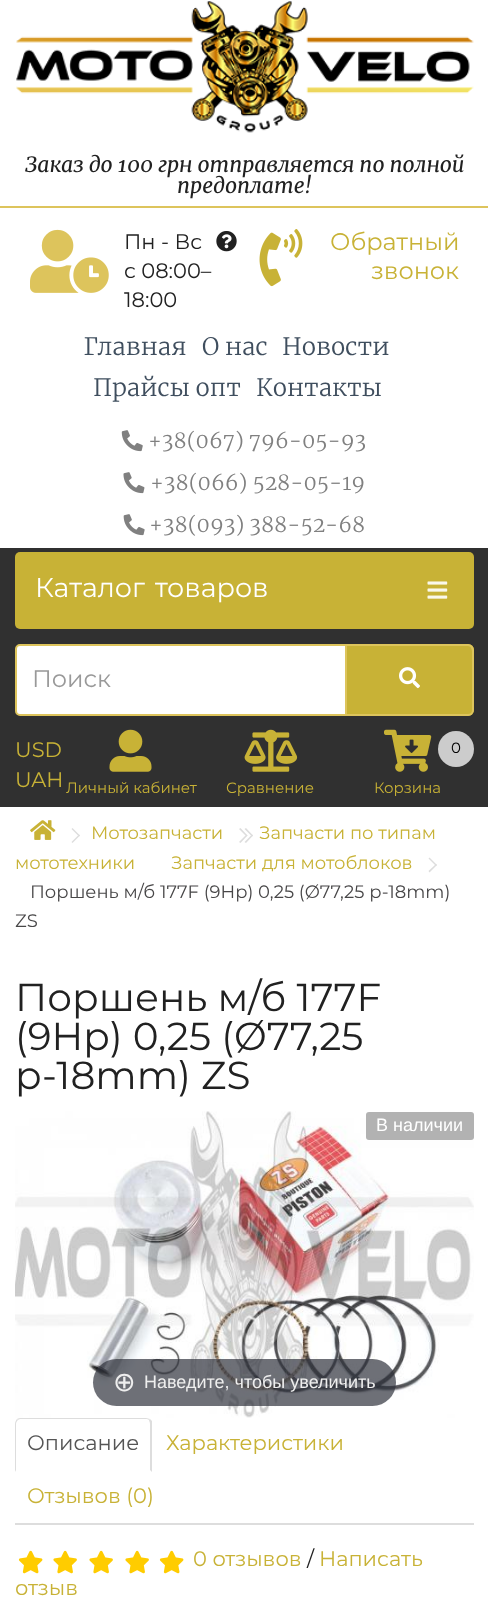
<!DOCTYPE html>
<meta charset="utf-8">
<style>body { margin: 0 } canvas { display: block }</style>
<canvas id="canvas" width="488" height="1619"></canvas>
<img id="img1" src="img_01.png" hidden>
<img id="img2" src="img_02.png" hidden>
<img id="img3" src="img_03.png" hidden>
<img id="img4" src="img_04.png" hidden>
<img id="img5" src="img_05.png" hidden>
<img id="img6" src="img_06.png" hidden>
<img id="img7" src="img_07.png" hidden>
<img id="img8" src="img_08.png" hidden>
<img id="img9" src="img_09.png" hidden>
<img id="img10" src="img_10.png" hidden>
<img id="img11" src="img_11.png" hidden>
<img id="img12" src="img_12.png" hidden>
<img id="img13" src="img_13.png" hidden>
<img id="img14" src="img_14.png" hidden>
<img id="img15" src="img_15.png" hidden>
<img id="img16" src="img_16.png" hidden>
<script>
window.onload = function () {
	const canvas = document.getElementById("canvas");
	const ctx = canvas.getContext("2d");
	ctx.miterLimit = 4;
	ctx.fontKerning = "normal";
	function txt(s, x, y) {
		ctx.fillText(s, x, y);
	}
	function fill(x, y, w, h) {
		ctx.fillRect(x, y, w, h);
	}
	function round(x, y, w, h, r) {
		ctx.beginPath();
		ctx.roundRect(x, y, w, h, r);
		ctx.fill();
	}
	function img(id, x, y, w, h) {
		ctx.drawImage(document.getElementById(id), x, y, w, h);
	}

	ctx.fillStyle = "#FFFFFF";
	fill(0, 0, 488, 1619);
	img("img1", 16, 1, 458, 132);
	ctx.fillStyle = "#DDC45C";
	fill(0, 206, 488, 2);
	img("img2", 30, 229, 79, 64);
	img("img3", 216, 231, 21, 21);
	img("img4", 259, 229, 44, 58);
	img("img5", 121, 430, 22, 22);
	img("img6", 123, 472, 22, 22);
	img("img7", 123, 514, 22, 22);
	ctx.fillStyle = "#303030";
	fill(0, 548, 488, 259);
	ctx.fillStyle = "#C8B236";
	round(15, 552, 459, 77, 5);
	img("img8", 427, 581, 21, 18);
	ctx.fillStyle = "#FFFFFF";
	ctx.beginPath();
	ctx.roundRect(16, 645, 330, 70, [4, 0, 0, 4]);
	ctx.fill();
	ctx.strokeStyle = "#DDC45C";
	ctx.lineWidth = 2;
	ctx.stroke();
	ctx.fillStyle = "#C8B236";
	ctx.beginPath();
	ctx.roundRect(345, 644, 129, 72, [0, 6, 6, 0]);
	ctx.fill();
	ctx.fillStyle = "#D3C15E";
	ctx.beginPath();
	ctx.moveTo(347, 645);
	ctx.lineTo(347, 646);
	ctx.lineTo(468, 646);
	ctx.bezierCurveTo(474, 646, 472, 660, 472, 661);
	ctx.lineTo(472, 712);
	ctx.bezierCurveTo(473, 711, 473, 710, 473, 709);
	ctx.lineTo(473, 650);
	ctx.bezierCurveTo(473, 647, 471, 645, 468, 645);
	ctx.closePath();
	ctx.fill();
	ctx.beginPath();
	ctx.roundRect(346, 645, 127, 70, [0, 5, 5, 0]);
	ctx.stroke();
	img("img9", 399, 667, 21, 22);
	img("img10", 109, 729, 43, 43);
	img("img11", 244, 729, 54, 43);
	img("img12", 384, 729, 48, 43);
	ctx.fillStyle = "#CCCCCC";
	ctx.beginPath();
	ctx.arc(456, 749, 18, 0, Math.PI * 2);
	ctx.fill();
	img("img13", 30, 820, 26, 20);
	ctx.fillStyle = "#DDDDDD";
	ctx.beginPath();
	ctx.moveTo(71.5, 829);
	ctx.lineTo(72.5, 828);
	ctx.lineTo(80, 835.5);
	ctx.lineTo(79, 836.5);
	ctx.closePath();
	ctx.fill();
	ctx.beginPath();
	ctx.moveTo(71.5, 842);
	ctx.lineTo(79, 834.5);
	ctx.lineTo(80, 835.5);
	ctx.lineTo(72.5, 843);
	ctx.closePath();
	ctx.fill();
	ctx.beginPath();
	ctx.moveTo(239, 829);
	ctx.lineTo(240.5, 828);
	ctx.lineTo(247.5, 835.5);
	ctx.lineTo(246.5, 836.5);
	ctx.closePath();
	ctx.fill();
	ctx.beginPath();
	ctx.moveTo(239, 842);
	ctx.lineTo(246.5, 834.5);
	ctx.lineTo(247.5, 835.5);
	ctx.lineTo(240.5, 843);
	ctx.closePath();
	ctx.fill();
	ctx.beginPath();
	ctx.moveTo(244.5, 829);
	ctx.lineTo(246, 828);
	ctx.lineTo(253, 835.5);
	ctx.lineTo(252, 836.5);
	ctx.closePath();
	ctx.fill();
	ctx.beginPath();
	ctx.moveTo(244.5, 842);
	ctx.lineTo(252, 834.5);
	ctx.lineTo(253, 835.5);
	ctx.lineTo(246, 843);
	ctx.closePath();
	ctx.fill();
	ctx.beginPath();
	ctx.moveTo(428.5, 858.5);
	ctx.lineTo(429.5, 857.5);
	ctx.lineTo(437, 865);
	ctx.lineTo(436, 866);
	ctx.closePath();
	ctx.fill();
	ctx.beginPath();
	ctx.moveTo(428.5, 871);
	ctx.lineTo(436, 864);
	ctx.lineTo(437, 865);
	ctx.lineTo(429.5, 872.5);
	ctx.closePath();
	ctx.fill();
	img("img14", 15, 1111, 459, 307);
	ctx.fillStyle = "#B2B2B2";
	round(366, 1112, 108, 28, 3);
	ctx.fillStyle = "rgba(49, 51, 61, 0.7)";
	round(93, 1359, 303, 47, 23.5);
	ctx.fillStyle = "#DDDDDD";
	fill(15, 1523, 459, 2);
	ctx.beginPath();
	ctx.moveTo(21, 1418);
	ctx.bezierCurveTo(20, 1418, 18, 1418, 17, 1419);
	ctx.lineTo(18, 1420);
	ctx.bezierCurveTo(19, 1419, 20, 1419, 21, 1419);
	ctx.lineTo(146, 1419);
	ctx.bezierCurveTo(147, 1419, 148, 1419, 149, 1420);
	ctx.lineTo(150, 1419);
	ctx.lineTo(146, 1418);
	ctx.closePath();
	ctx.fill();
	ctx.beginPath();
	ctx.moveTo(150, 1419);
	ctx.lineTo(152, 1421);
	ctx.lineTo(152, 1472);
	ctx.lineTo(150, 1470);
	ctx.lineTo(150, 1424);
	ctx.bezierCurveTo(150, 1422, 149, 1421, 149, 1420);
	ctx.closePath();
	ctx.fill();
	ctx.beginPath();
	ctx.moveTo(15, 1472);
	ctx.lineTo(16, 1470);
	ctx.lineTo(16, 1424);
	ctx.bezierCurveTo(16, 1422, 17, 1421, 18, 1420);
	ctx.lineTo(17, 1419);
	ctx.bezierCurveTo(16, 1420, 15, 1422, 15, 1424);
	ctx.closePath();
	ctx.fill();
	img("img15", 18, 1550, 25, 24);
	img("img16", 53, 1550, 24, 24);
	img("img16", 89, 1550, 24, 24);
	img("img16", 125, 1550, 24, 24);
	img("img15", 159, 1550, 25, 24);
	ctx.font = "italic 21px Merriweather";
	ctx.fillStyle = "#212121";
	txt("Заказ до 100 грн отправляется по полной", 25, 172);
	txt("предоплате!", 177, 193);
	ctx.font = "21px Montserrat";
	txt("Пн - Вс", 124, 249);
	txt("с 08:00–", 124, 278);
	txt("18:00", 124, 307);
	ctx.font = "24px Montserrat";
	ctx.fillStyle = "#C8B236";
	txt("Обратный", 330, 250);
	txt("звонок", 371, 279);
	ctx.font = "300 24px Merriweather";
	ctx.fillStyle = "#3F4E5E";
	txt("Главная", 84, 355);
	txt("О нас", 202, 355);
	txt("Новости", 282, 355);
	txt("Прайсы опт", 93, 396);
	txt("Контакты", 256, 396);
	ctx.font = "300 21px Merriweather";
	ctx.fillStyle = "#808080";
	txt("+38(067) 796-05-93", 148, 448);
	txt("+38(066) 528-05-19", 150, 490);
	txt("+38(093) 388-52-68", 149, 532);
	ctx.font = "27px Montserrat";
	ctx.fillStyle = "#FFFFFF";
	txt("Каталог", 35, 597);
	txt("товаров", 155, 597);
	ctx.font = "24px Montserrat";
	ctx.fillStyle = "#999999";
	txt("Поиск", 32, 687);
	ctx.font = "21px Montserrat";
	ctx.fillStyle = "#C8B236";
	txt("USD", 15, 757);
	txt("UAH", 15, 787);
	ctx.font = "15px Montserrat";
	txt("Личный кабинет", 66, 793);
	txt("Сравнение", 226, 793);
	ctx.fillStyle = "#000000";
	txt("0", 451, 753);
	ctx.fillStyle = "#C8B236";
	txt("Корзина", 374, 793);
	ctx.font = "18px Montserrat";
	txt("Запчасти по типам", 259, 839);
	txt("мототехники", 15, 869);
	txt("Мотозапчасти", 91, 839);
	txt("Запчасти для мотоблоков", 171, 869);
	ctx.fillStyle = "#484748";
	txt("Поршень м/б 177F (9Hp) 0,25 (Ø77,25 р-18mm)", 30, 898);
	txt("ZS", 15, 927);
	ctx.font = "39px Montserrat";
	ctx.fillStyle = "#212121";
	txt("Поршень м/б 177F", 15, 1011);
	txt("(9Hp) 0,25 (Ø77,25", 15, 1050);
	txt("р-18mm) ZS", 15, 1089);
	ctx.font = "18px Liberation Sans";
	ctx.fillStyle = "#FFFFFF";
	txt("В наличии", 376, 1131);
	ctx.font = "27px DejaVu Sans";
	ctx.fillStyle = "#EEEEEE";
	txt("⊕", 113, 1391);
	ctx.font = "18px Liberation Sans";
	txt("Наведите, чтобы увеличить", 144, 1388);
	ctx.font = "21px Montserrat";
	ctx.fillStyle = "#555555";
	txt("Описание", 27, 1450);
	ctx.fillStyle = "#C8B236";
	txt("Характеристики", 166, 1450);
	txt("Отзывов (0)", 27, 1503);
	txt("0 отзывов", 193, 1566);
	ctx.fillStyle = "#212121";
	txt("/", 307, 1566);
	ctx.fillStyle = "#C8B236";
	txt("Написать", 319, 1566);
	txt("отзыв", 15, 1595);
};
</script>
